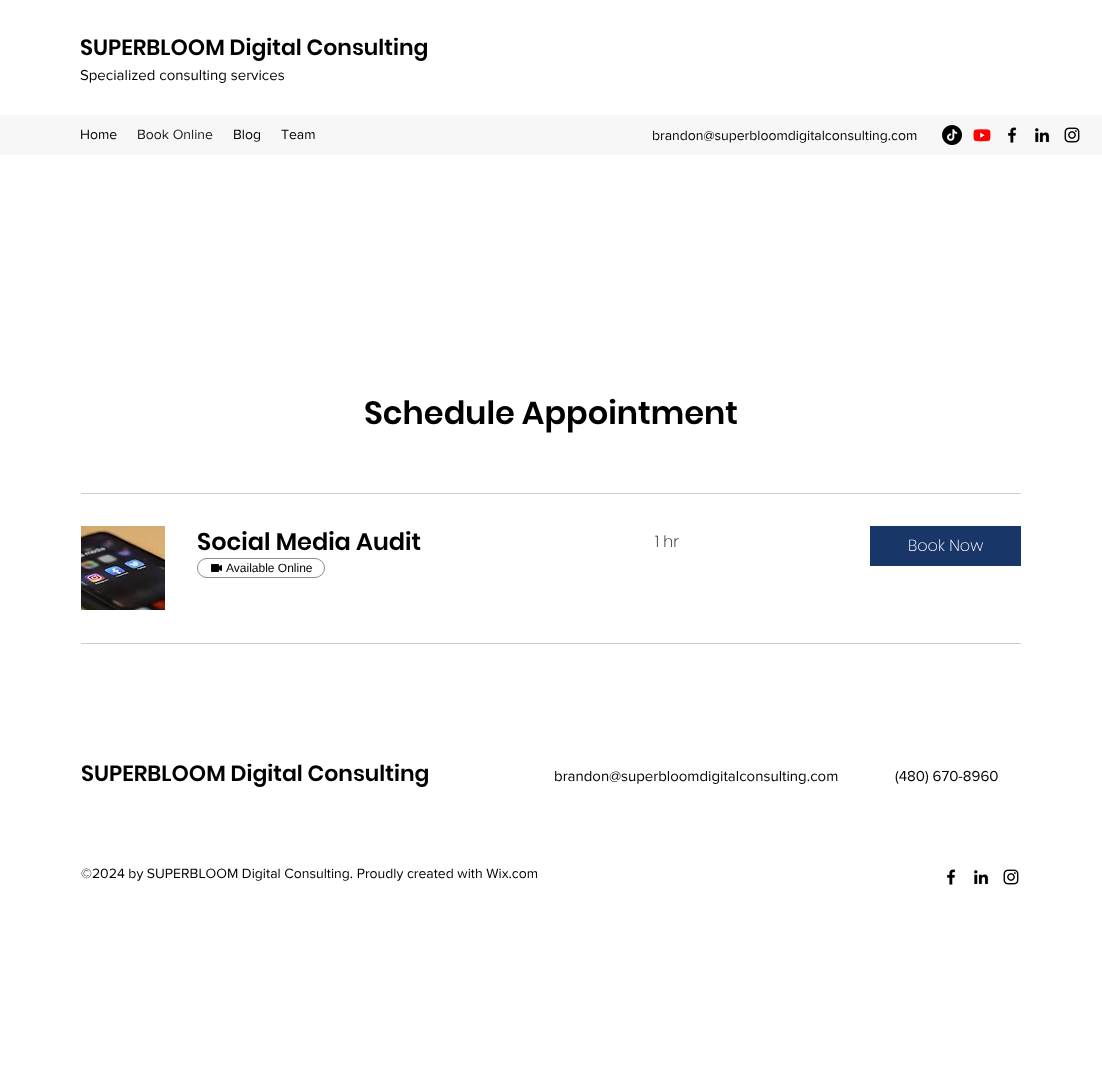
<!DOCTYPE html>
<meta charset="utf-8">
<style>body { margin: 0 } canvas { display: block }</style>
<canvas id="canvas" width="1102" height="1085"></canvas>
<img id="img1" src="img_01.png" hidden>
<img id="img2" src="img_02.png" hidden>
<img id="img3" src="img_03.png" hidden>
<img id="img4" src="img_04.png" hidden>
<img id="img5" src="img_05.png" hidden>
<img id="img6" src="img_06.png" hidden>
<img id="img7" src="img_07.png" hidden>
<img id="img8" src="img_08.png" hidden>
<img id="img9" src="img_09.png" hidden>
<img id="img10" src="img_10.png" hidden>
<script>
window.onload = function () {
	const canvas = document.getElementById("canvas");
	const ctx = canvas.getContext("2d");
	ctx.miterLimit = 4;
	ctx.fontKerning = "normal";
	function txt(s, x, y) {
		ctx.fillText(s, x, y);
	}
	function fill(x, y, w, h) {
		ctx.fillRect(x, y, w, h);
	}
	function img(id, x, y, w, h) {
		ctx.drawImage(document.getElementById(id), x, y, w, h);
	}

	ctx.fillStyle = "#FFFFFF";
	fill(0, 0, 1102, 1085);
	ctx.fillStyle = "#F7F7F7";
	fill(0, 115, 1102, 40);
	img("img1", 942, 125, 20, 20);
	img("img2", 973, 129, 18, 13);
	img("img3", 1008, 127, 9, 16);
	img("img4", 1035, 128, 15, 15);
	img("img5", 1064, 127, 16, 16);
	ctx.fillStyle = "#CCCCCC";
	fill(81, 493, 940, 1);
	img("img6", 81, 526, 84, 84);
	ctx.beginPath();
	ctx.roundRect(197.5, 558.5, 127, 19, 9.5);
	ctx.strokeStyle = "#8C8C8C";
	ctx.stroke();
	img("img7", 211, 564, 11, 8);
	ctx.fillStyle = "#193669";
	fill(870, 526, 151, 40);
	ctx.fillStyle = "#CCCCCC";
	fill(81, 643, 940, 1);
	img("img8", 947, 869, 9, 16);
	img("img9", 974, 870, 15, 15);
	img("img10", 1003, 869, 16, 16);
	ctx.font = "600 22px Poppins";
	ctx.fillStyle = "#000000";
	txt("SUPERBLOOM Digital Consulting", 80, 55);
	ctx.font = "15px 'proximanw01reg'";
	txt("Specialized consulting services", 80, 80);
	ctx.font = "14px 'proximanw01reg'";
	txt("Home", 80, 139);
	ctx.fillStyle = "#191919";
	txt("Book Online", 137, 139);
	ctx.fillStyle = "#000000";
	txt("Blog", 233, 139);
	txt("Team", 281, 139);
	txt("brandon@superbloomdigitalconsulting.com", 652, 140);
	ctx.font = "600 32px Poppins";
	txt("Schedule Appointment", 364, 424);
	ctx.font = "600 24px Poppins";
	txt("Social Media Audit", 197, 550);
	ctx.font = "12px Liberation Sans";
	txt("Available Online", 226, 572);
	ctx.font = "200 16px Poppins";
	txt("1 hr", 655, 547);
	ctx.fillStyle = "#FFFFFF";
	txt("Book Now", 908, 551);
	ctx.font = "600 22px Poppins";
	ctx.fillStyle = "#000000";
	txt("SUPERBLOOM Digital Consulting", 81, 781);
	ctx.font = "15px 'proximanw01reg'";
	txt("brandon@superbloomdigitalconsulting.com", 554, 781);
	txt("(480) 670-8960", 895, 781);
	ctx.font = "14px 'proximanw01reg'";
	txt("©2024 by SUPERBLOOM Digital Consulting. Proudly created with Wix.com", 81, 878);
};
</script>
